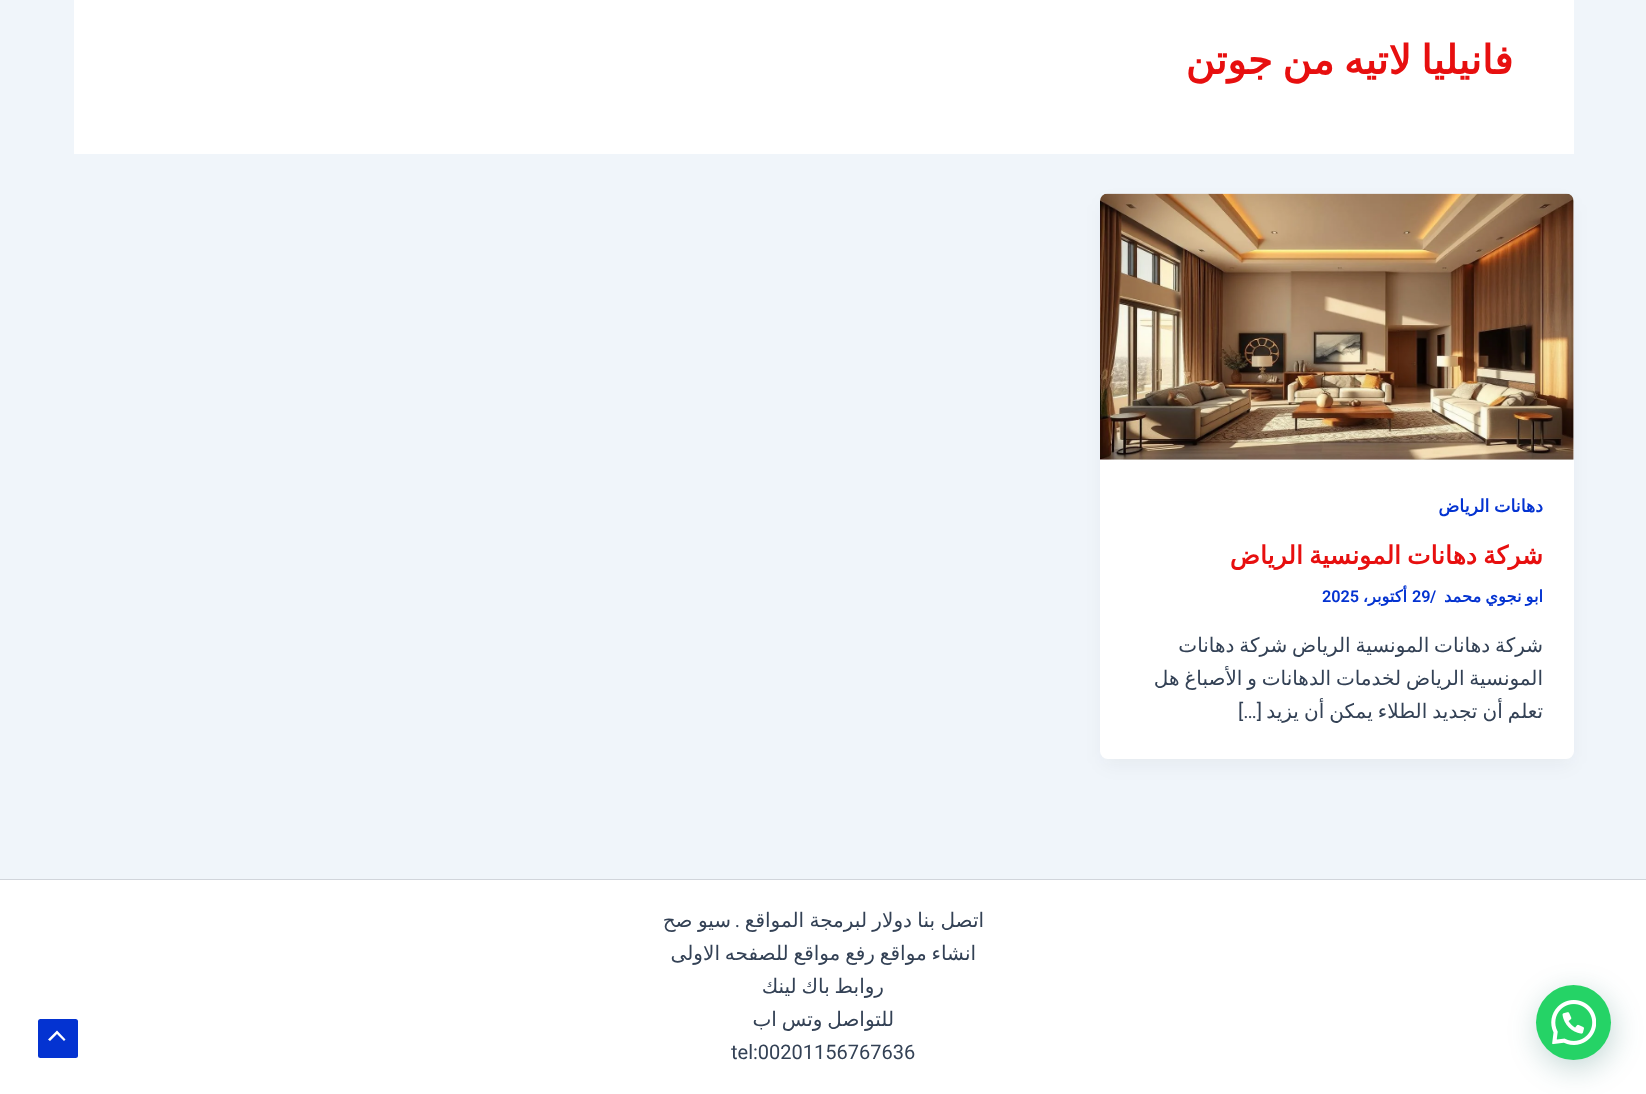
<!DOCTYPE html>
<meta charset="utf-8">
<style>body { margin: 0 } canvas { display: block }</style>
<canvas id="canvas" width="1646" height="1094"></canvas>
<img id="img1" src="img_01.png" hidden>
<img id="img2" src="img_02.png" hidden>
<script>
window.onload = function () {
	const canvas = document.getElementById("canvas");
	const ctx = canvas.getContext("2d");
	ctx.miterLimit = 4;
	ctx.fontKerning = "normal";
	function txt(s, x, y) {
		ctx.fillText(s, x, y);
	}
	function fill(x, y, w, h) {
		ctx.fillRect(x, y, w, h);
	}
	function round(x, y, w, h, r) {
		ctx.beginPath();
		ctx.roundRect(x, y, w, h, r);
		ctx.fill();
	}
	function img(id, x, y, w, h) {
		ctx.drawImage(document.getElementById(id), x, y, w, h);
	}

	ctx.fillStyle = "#F0F5FA";
	fill(0, 0, 1646, 1094);
	ctx.fillStyle = "#FFFFFF";
	fill(0, 880, 1646, 214);
	ctx.fillStyle = "rgba(7, 94, 84, 0.24)";
	ctx.filter = "blur(15px)";
	ctx.beginPath();
	ctx.roundRect(1538, 993, 75, 75, 37.5);
	ctx.fill();
	ctx.filter = "none";
	ctx.fillStyle = "#25D366";
	ctx.beginPath();
	ctx.arc(1573.5, 1022.5, 37.5, 0, Math.PI * 2);
	ctx.fill();
	img("img1", 1551, 1000, 45, 45);
	ctx.fillStyle = "#FFFFFF";
	fill(74, 0, 1500, 154);
	ctx.fillStyle = "rgba(16, 24, 40, 0.05)";
	ctx.filter = "blur(9.5px)";
	ctx.beginPath();
	ctx.roundRect(1103, 204, 468, 560, 5);
	ctx.fill();
	ctx.filter = "none";
	ctx.fillStyle = "#FFFFFF";
	round(1100, 194, 474, 565, 8);
	img("img2", 1100, 193, 474, 267);
	ctx.fillStyle = "#D1D5DB";
	fill(0, 879, 1646, 1);
	ctx.fillStyle = "#0433D1";
	round(38, 1019, 40, 39, 2.5);
	ctx.fillStyle = "#FFFFFF";
	ctx.beginPath();
	ctx.moveTo(65.5, 1039.5);
	ctx.lineTo(57, 1030.5);
	ctx.lineTo(48, 1039.5);
	ctx.lineTo(50, 1041);
	ctx.lineTo(57, 1034);
	ctx.lineTo(64, 1041);
	ctx.closePath();
	ctx.fill();
	ctx.wordSpacing = "-3px";
	ctx.direction = "rtl";
	ctx.font = "bold 40px DejaVu Sans";
	ctx.fillStyle = "#E70F0F";
	txt("فانيليا لاتيه من جوتن", 1513, 74);
	ctx.wordSpacing = "-1px";
	ctx.font = "bold 17.5px DejaVu Sans";
	ctx.fillStyle = "#0433D1";
	txt("دهانات الرياض", 1543, 512);
	ctx.wordSpacing = "-2px";
	ctx.font = "bold 25px DejaVu Sans";
	ctx.fillStyle = "#E70F0F";
	txt("شركة دهانات المونسية الرياض", 1543, 564);
	ctx.wordSpacing = "-1px";
	ctx.font = "bold 16.25px DejaVu Sans";
	ctx.fillStyle = "#0433D1";
	txt("ابو نجوي محمد", 1543, 602);
	ctx.wordSpacing = "0px";
	ctx.direction = "ltr";
	ctx.font = "600 16.25px Roboto";
	txt("/", 1430, 602);
	txt("29", 1412, 602);
	ctx.direction = "rtl";
	ctx.font = "bold 16.25px DejaVu Sans";
	txt("أكتوبر،", 1407, 602);
	ctx.direction = "ltr";
	ctx.font = "600 16.25px Roboto";
	txt("2025", 1322, 602);
	ctx.wordSpacing = "-1.5px";
	ctx.direction = "rtl";
	ctx.font = "20px DejaVu Sans";
	ctx.fillStyle = "#334155";
	txt("شركة دهانات المونسية الرياض شركة دهانات", 1543, 652);
	txt("المونسية الرياض لخدمات الدهانات و الأصباغ هل", 1543, 685);
	ctx.wordSpacing = "-1.25px";
	txt("تعلم أن تجديد الطلاء يمكن أن يزيد", 1543, 718);
	ctx.wordSpacing = "0px";
	ctx.font = "20px Roboto";
	txt("[…]", 1262, 718);
	ctx.wordSpacing = "-1px";
	ctx.font = "20px DejaVu Sans";
	txt("اتصل بنا دولار لبرمجة المواقع", 984, 927);
	ctx.wordSpacing = "0px";
	ctx.font = "20px Roboto";
	txt(".", 740, 927);
	ctx.wordSpacing = "-1px";
	ctx.font = "20px DejaVu Sans";
	txt("سيو صح", 731, 927);
	ctx.wordSpacing = "-1.5px";
	txt("انشاء مواقع رفع مواقع للصفحه الاولى", 976, 960);
	txt("روابط باك لينك", 884, 993);
	txt("للتواصل وتس اب", 894, 1026);
	ctx.wordSpacing = "0px";
	ctx.direction = "ltr";
	ctx.font = "20px Roboto";
	txt("tel:00201156767636", 731, 1059);
};
</script>
